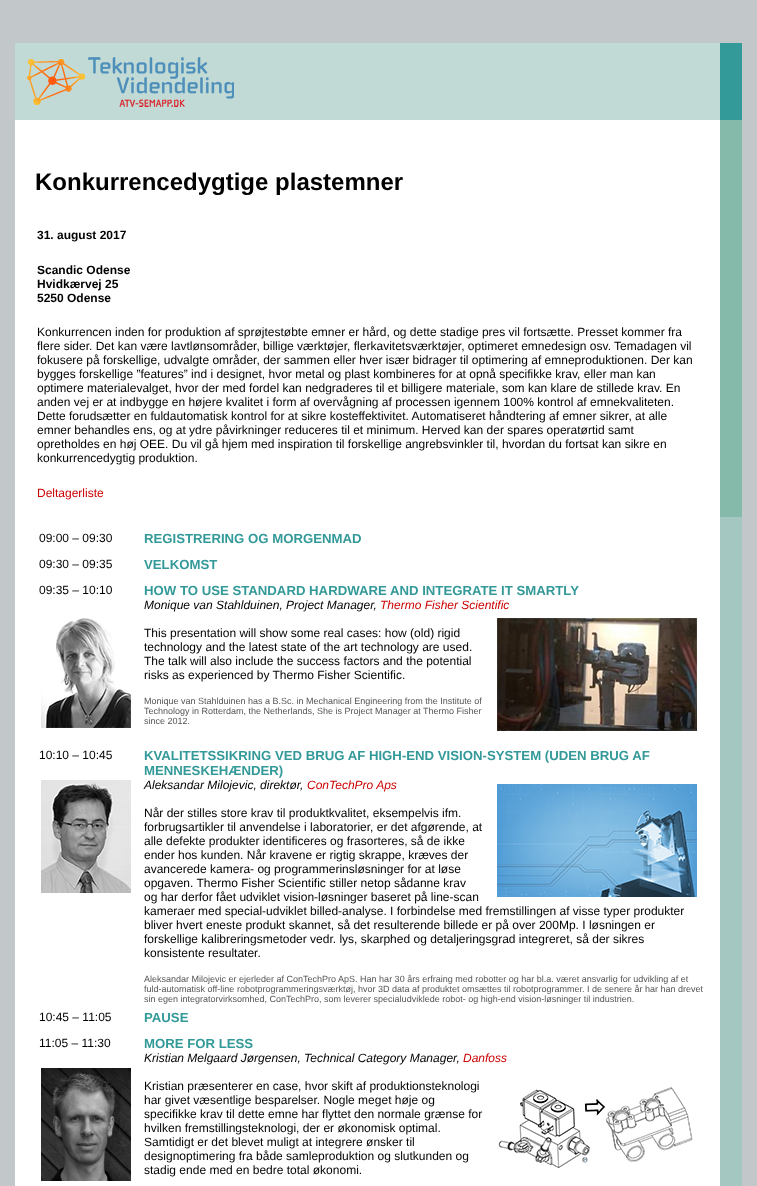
<!DOCTYPE html>
<meta charset="utf-8">
<style>body { margin: 0 } canvas { display: block }</style>
<canvas id="canvas" width="757" height="1186"></canvas>
<img id="img1" src="img_01.png" hidden>
<img id="img2" src="img_02.png" hidden>
<img id="img3" src="img_03.png" hidden>
<img id="img4" src="img_04.png" hidden>
<img id="img5" src="img_05.png" hidden>
<img id="img6" src="img_06.png" hidden>
<img id="img7" src="img_07.png" hidden>
<script>
window.onload = function () {
	const canvas = document.getElementById("canvas");
	const ctx = canvas.getContext("2d");
	ctx.miterLimit = 4;
	ctx.fontKerning = "normal";
	function txt(s, x, y) {
		ctx.fillText(s, x, y);
	}
	function fill(x, y, w, h) {
		ctx.fillRect(x, y, w, h);
	}
	function img(id, x, y, w, h) {
		ctx.drawImage(document.getElementById(id), x, y, w, h);
	}

	ctx.fillStyle = "#C2C7C9";
	fill(0, 0, 757, 1186);
	ctx.fillStyle = "#FFFFFF";
	fill(15, 120, 705, 1066);
	ctx.fillStyle = "#C2DAD6";
	fill(15, 43, 705, 77);
	img("img1", 27, 57, 207, 50);
	ctx.fillStyle = "#339999";
	fill(720, 43, 22, 77);
	ctx.fillStyle = "#85BAAB";
	fill(720, 120, 22, 397);
	img("img2", 41, 618, 90, 110);
	img("img3", 497, 618, 200, 113);
	img("img4", 41, 780, 90, 113);
	img("img5", 497, 784, 200, 113);
	img("img6", 41, 1068, 90, 113);
	img("img7", 498, 1087, 195, 81);
	ctx.fillStyle = "#A5C7C1";
	fill(720, 517, 22, 669);
	ctx.font = "bold 24px Liberation Sans";
	ctx.fillStyle = "#000000";
	txt("Konkurrencedygtige plastemner", 35, 190);
	ctx.font = "bold 12px Liberation Sans";
	txt("31. august 2017", 37, 239);
	txt("Scandic Odense", 37, 274);
	txt("Hvidkærvej 25", 37, 288);
	txt("5250 Odense", 37, 302);
	ctx.font = "12px Liberation Sans";
	txt("Konkurrencen inden for produktion af sprøjtestøbte emner er hård, og dette stadige pres vil fortsætte. Presset kommer fra", 37, 336);
	txt("flere sider. Det kan være lavtlønsområder, billige værktøjer, flerkavitetsværktøjer, optimeret emnedesign osv. Temadagen vil", 37, 350);
	txt("fokusere på forskellige, udvalgte områder, der sammen eller hver især bidrager til optimering af emneproduktionen. Der kan", 37, 364);
	txt("bygges forskellige ”features” ind i designet, hvor metal og plast kombineres for at opnå specifikke krav, eller man kan", 37, 378);
	txt("optimere materialevalget, hvor der med fordel kan nedgraderes til et billigere materiale, som kan klare de stillede krav. En", 37, 392);
	txt("anden vej er at indbygge en højere kvalitet i form af overvågning af processen igennem 100% kontrol af emnekvaliteten.", 37, 406);
	txt("Dette forudsætter en fuldautomatisk kontrol for at sikre kosteffektivitet. Automatiseret håndtering af emner sikrer, at alle", 37, 420);
	txt("emner behandles ens, og at ydre påvirkninger reduceres til et minimum. Herved kan der spares operatørtid samt", 37, 434);
	txt("opretholdes en høj OEE. Du vil gå hjem med inspiration til forskellige angrebsvinkler til, hvordan du fortsat kan sikre en", 37, 448);
	txt("konkurrencedygtig produktion.", 37, 462);
	ctx.fillStyle = "#CC0000";
	txt("Deltagerliste", 37, 497);
	ctx.fillStyle = "#000000";
	txt("09:00 – 09:30", 39, 542);
	ctx.font = "bold 13.2px Liberation Sans";
	ctx.fillStyle = "#339999";
	txt("REGISTRERING OG MORGENMAD", 144, 543);
	ctx.font = "12px Liberation Sans";
	ctx.fillStyle = "#000000";
	txt("09:30 – 09:35", 39, 568);
	ctx.font = "bold 13.2px Liberation Sans";
	ctx.fillStyle = "#339999";
	txt("VELKOMST", 144, 569);
	ctx.font = "12px Liberation Sans";
	ctx.fillStyle = "#000000";
	txt("09:35 – 10:10", 39, 594);
	ctx.font = "bold 13.2px Liberation Sans";
	ctx.fillStyle = "#339999";
	txt("HOW TO USE STANDARD HARDWARE AND INTEGRATE IT SMARTLY", 144, 595);
	ctx.font = "italic 12px Liberation Sans";
	ctx.fillStyle = "#000000";
	txt("Monique van Stahlduinen, Project Manager,", 144, 609);
	ctx.fillStyle = "#CC0000";
	txt("Thermo Fisher Scientific", 380, 609);
	ctx.font = "12px Liberation Sans";
	ctx.fillStyle = "#000000";
	txt("This presentation will show some real cases: how (old) rigid", 144, 637);
	txt("technology and the latest state of the art technology are used.", 144, 651);
	txt("The talk will also include the success factors and the potential", 144, 665);
	txt("risks as experienced by Thermo Fisher Scientific.", 144, 679);
	ctx.font = "9px Liberation Sans";
	ctx.fillStyle = "#555555";
	txt("Monique van Stahlduinen has a B.Sc. in Mechanical Engineering from the Institute of", 144, 704);
	txt("Technology in Rotterdam, the Netherlands, She is Project Manager at Thermo Fisher", 144, 714);
	txt("since 2012.", 144, 724);
	ctx.font = "12px Liberation Sans";
	ctx.fillStyle = "#000000";
	txt("10:10 – 10:45", 39, 759);
	ctx.font = "bold 13.2px Liberation Sans";
	ctx.fillStyle = "#339999";
	txt("KVALITETSSIKRING VED BRUG AF HIGH-END VISION-SYSTEM (UDEN BRUG AF", 144, 760);
	txt("MENNESKEHÆNDER)", 144, 775);
	ctx.font = "italic 12px Liberation Sans";
	ctx.fillStyle = "#000000";
	txt("Aleksandar Milojevic, direktør,", 144, 789);
	ctx.fillStyle = "#CC0000";
	txt("ConTechPro Aps", 307, 789);
	ctx.font = "12px Liberation Sans";
	ctx.fillStyle = "#000000";
	txt("Når der stilles store krav til produktkvalitet, eksempelvis ifm.", 144, 817);
	txt("forbrugsartikler til anvendelse i laboratorier, er det afgørende, at", 144, 831);
	txt("alle defekte produkter identificeres og frasorteres, så de ikke", 144, 845);
	txt("ender hos kunden. Når kravene er rigtig skrappe, kræves der", 144, 859);
	txt("avancerede kamera- og programmerinsløsninger for at løse", 144, 873);
	txt("opgaven. Thermo Fisher Scientific stiller netop sådanne krav", 144, 887);
	txt("og har derfor fået udviklet vision-løsninger baseret på line-scan", 144, 901);
	txt("kameraer med special-udviklet billed-analyse. I forbindelse med fremstillingen af visse typer produkter", 144, 915);
	txt("bliver hvert eneste produkt skannet, så det resulterende billede er på over 200Mp. I løsningen er", 144, 929);
	txt("forskellige kalibreringsmetoder vedr. lys, skarphed og detaljeringsgrad integreret, så der sikres", 144, 943);
	txt("konsistente resultater.", 144, 957);
	ctx.font = "9px Liberation Sans";
	ctx.fillStyle = "#555555";
	txt("Aleksandar Milojevic er ejerleder af ConTechPro ApS. Han har 30 års erfraing med robotter og har bl.a. været ansvarlig for udvikling af et", 144, 982);
	txt("fuld-automatisk off-line robotprogrammeringsværktøj, hvor 3D data af produktet omsættes til robotprogrammer. I de senere år har han drevet", 144, 992);
	txt("sin egen integratorvirksomhed, ConTechPro, som leverer specialudviklede robot- og high-end vision-løsninger til industrien.", 144, 1002);
	ctx.font = "12px Liberation Sans";
	ctx.fillStyle = "#000000";
	txt("10:45 – 11:05", 39, 1021);
	ctx.font = "bold 13.2px Liberation Sans";
	ctx.fillStyle = "#339999";
	txt("PAUSE", 144, 1022);
	ctx.font = "12px Liberation Sans";
	ctx.fillStyle = "#000000";
	txt("11:05 – 11:30", 39, 1047);
	ctx.font = "bold 13.2px Liberation Sans";
	ctx.fillStyle = "#339999";
	txt("MORE FOR LESS", 144, 1048);
	ctx.font = "italic 12px Liberation Sans";
	ctx.fillStyle = "#000000";
	txt("Kristian Melgaard Jørgensen, Technical Category Manager,", 144, 1062);
	ctx.fillStyle = "#CC0000";
	txt("Danfoss", 463, 1062);
	ctx.font = "12px Liberation Sans";
	ctx.fillStyle = "#000000";
	txt("Kristian præsenterer en case, hvor skift af produktionsteknologi", 144, 1090);
	txt("har givet væsentlige besparelser. Nogle meget høje og", 144, 1104);
	txt("specifikke krav til dette emne har flyttet den normale grænse for", 144, 1118);
	txt("hvilken fremstillingsteknologi, der er økonomisk optimal.", 144, 1132);
	txt("Samtidigt er det blevet muligt at integrere ønsker til", 144, 1146);
	txt("designoptimering fra både samleproduktion og slutkunden og", 144, 1160);
	txt("stadig ende med en bedre total økonomi.", 144, 1174);
};
</script>
